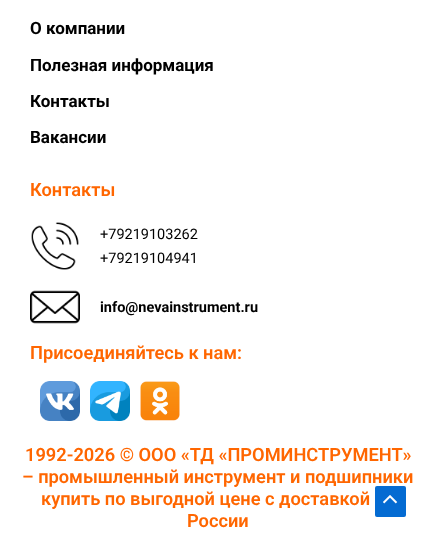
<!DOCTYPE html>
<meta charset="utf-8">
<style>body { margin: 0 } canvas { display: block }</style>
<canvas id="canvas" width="436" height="547"></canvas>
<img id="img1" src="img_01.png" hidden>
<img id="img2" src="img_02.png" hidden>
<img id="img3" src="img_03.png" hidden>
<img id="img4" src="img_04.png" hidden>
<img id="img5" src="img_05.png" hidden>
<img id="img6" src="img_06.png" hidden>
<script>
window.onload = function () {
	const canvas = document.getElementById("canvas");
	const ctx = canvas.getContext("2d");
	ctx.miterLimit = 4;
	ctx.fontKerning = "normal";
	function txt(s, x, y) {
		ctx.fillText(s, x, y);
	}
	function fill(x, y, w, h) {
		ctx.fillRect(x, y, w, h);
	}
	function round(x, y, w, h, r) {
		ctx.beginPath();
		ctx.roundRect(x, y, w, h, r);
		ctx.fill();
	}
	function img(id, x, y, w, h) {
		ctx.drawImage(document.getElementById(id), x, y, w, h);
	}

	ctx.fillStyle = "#FFFFFF";
	fill(0, 0, 436, 547);
	img("img1", 31, 222, 48, 48);
	img("img2", 30, 290, 50, 34);
	img("img3", 40, 381, 40, 40);
	img("img4", 90, 381, 40, 40);
	img("img5", 140, 381, 40, 40);
	ctx.font = "bold 17px Roboto";
	ctx.fillStyle = "#000000";
	txt("О компании", 30, 34);
	txt("Полезная информация", 30, 71);
	txt("Контакты", 30, 107);
	txt("Вакансии", 30, 143);
	ctx.font = "600 18.25px Roboto";
	ctx.fillStyle = "#FF6600";
	txt("Контакты", 30, 196);
	ctx.font = "14.5px Roboto";
	ctx.fillStyle = "#000000";
	txt("+79219103262", 100, 239);
	txt("+79219104941", 100, 263);
	ctx.font = "bold 14.5px Roboto";
	txt("info@nevainstrument.ru", 100, 312);
	ctx.font = "600 18.25px Roboto";
	ctx.fillStyle = "#FF6600";
	txt("Присоединяйтесь к нам:", 30, 359);
	txt("1992-2026 © ООО «ТД «ПРОМИНСТРУМЕНТ»", 25, 461);
	txt("– промышленный инструмент и подшипники", 22, 483);
	txt("купить по выгодной цене с доставкой", 41, 505);
	txt("России", 187, 527);
	ctx.fillStyle = "#046BD2";
	round(375, 486, 31, 31, 2);
	img("img6", 383, 495, 15, 9);
};
</script>
